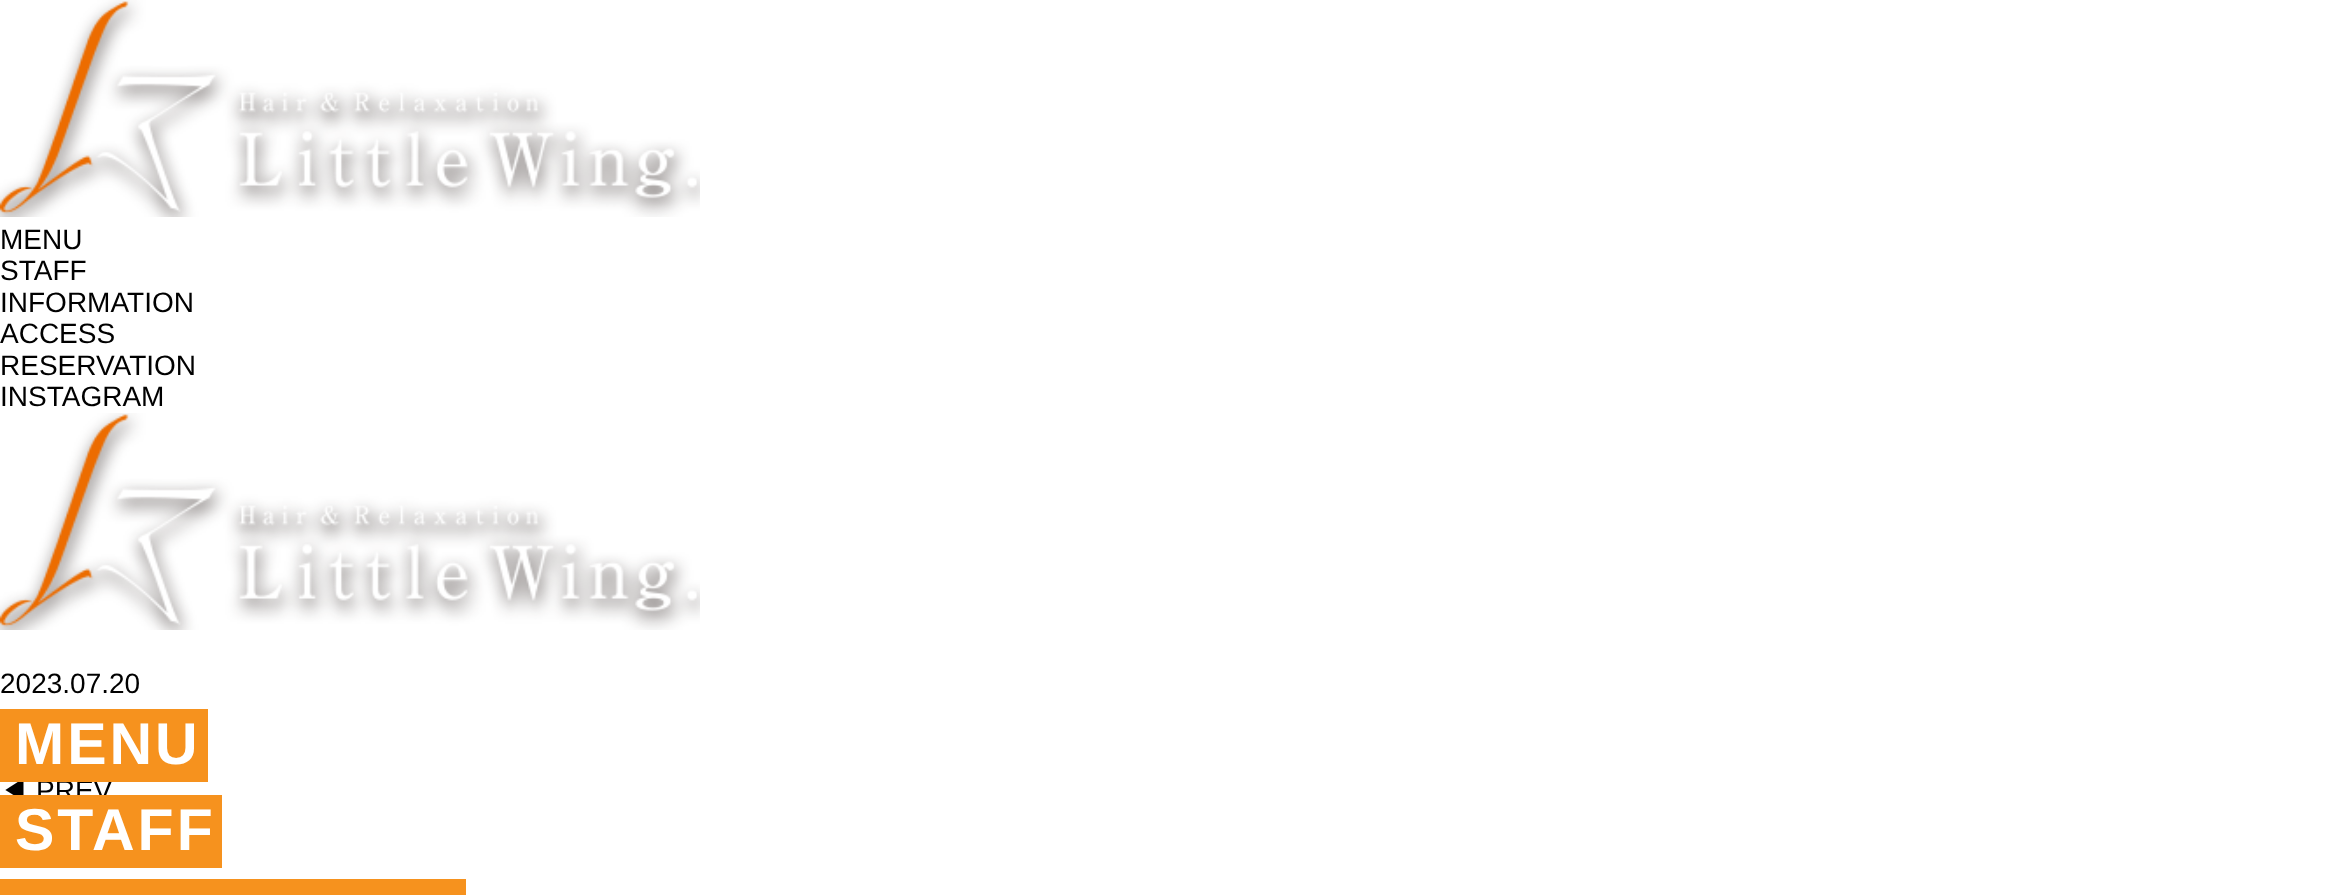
<!DOCTYPE html>
<meta charset="utf-8">
<style>body { margin: 0 } canvas { display: block }</style>
<canvas id="canvas" width="2351" height="895"></canvas>
<img id="img1" src="img_01.png" hidden>
<script>
window.onload = function () {
	const canvas = document.getElementById("canvas");
	const ctx = canvas.getContext("2d");
	ctx.miterLimit = 4;
	ctx.fontKerning = "normal";
	function txt(s, x, y) {
		ctx.fillText(s, x, y);
	}
	function fill(x, y, w, h) {
		ctx.fillRect(x, y, w, h);
	}
	function img(id, x, y, w, h) {
		ctx.drawImage(document.getElementById(id), x, y, w, h);
	}

	ctx.fillStyle = "#FFFFFF";
	fill(0, 0, 2351, 895);
	img("img1", 0, 0, 700, 217);
	img("img1", 0, 413, 700, 217);
	ctx.fillStyle = "#F6921E";
	fill(0, 879, 466, 16);
	ctx.font = "28px Liberation Sans";
	ctx.fillStyle = "#000000";
	txt("MENU", 0, 249);
	txt("STAFF", 0, 280);
	txt("INFORMATION", 0, 312);
	txt("ACCESS", 0, 343);
	txt("RESERVATION", 0, 375);
	txt("INSTAGRAM", 0, 406);
	txt("2023.07.20", 0, 693);
	ctx.font = "500 28px WenQuanYi Zen Hei";
	txt("◀︎", 0, 800);
	ctx.font = "28px Liberation Sans";
	txt("PREV", 36, 800);
	ctx.fillStyle = "#F6921E";
	fill(0, 709, 208, 73);
	ctx.letterSpacing = "3px";
	ctx.font = "bold 59px Liberation Sans";
	ctx.fillStyle = "#FFFFFF";
	txt("MENU", 15, 764);
	ctx.fillStyle = "#F6921E";
	fill(0, 795, 222, 73);
	ctx.fillStyle = "#FFFFFF";
	txt("STAFF", 15, 850);
};
</script>
